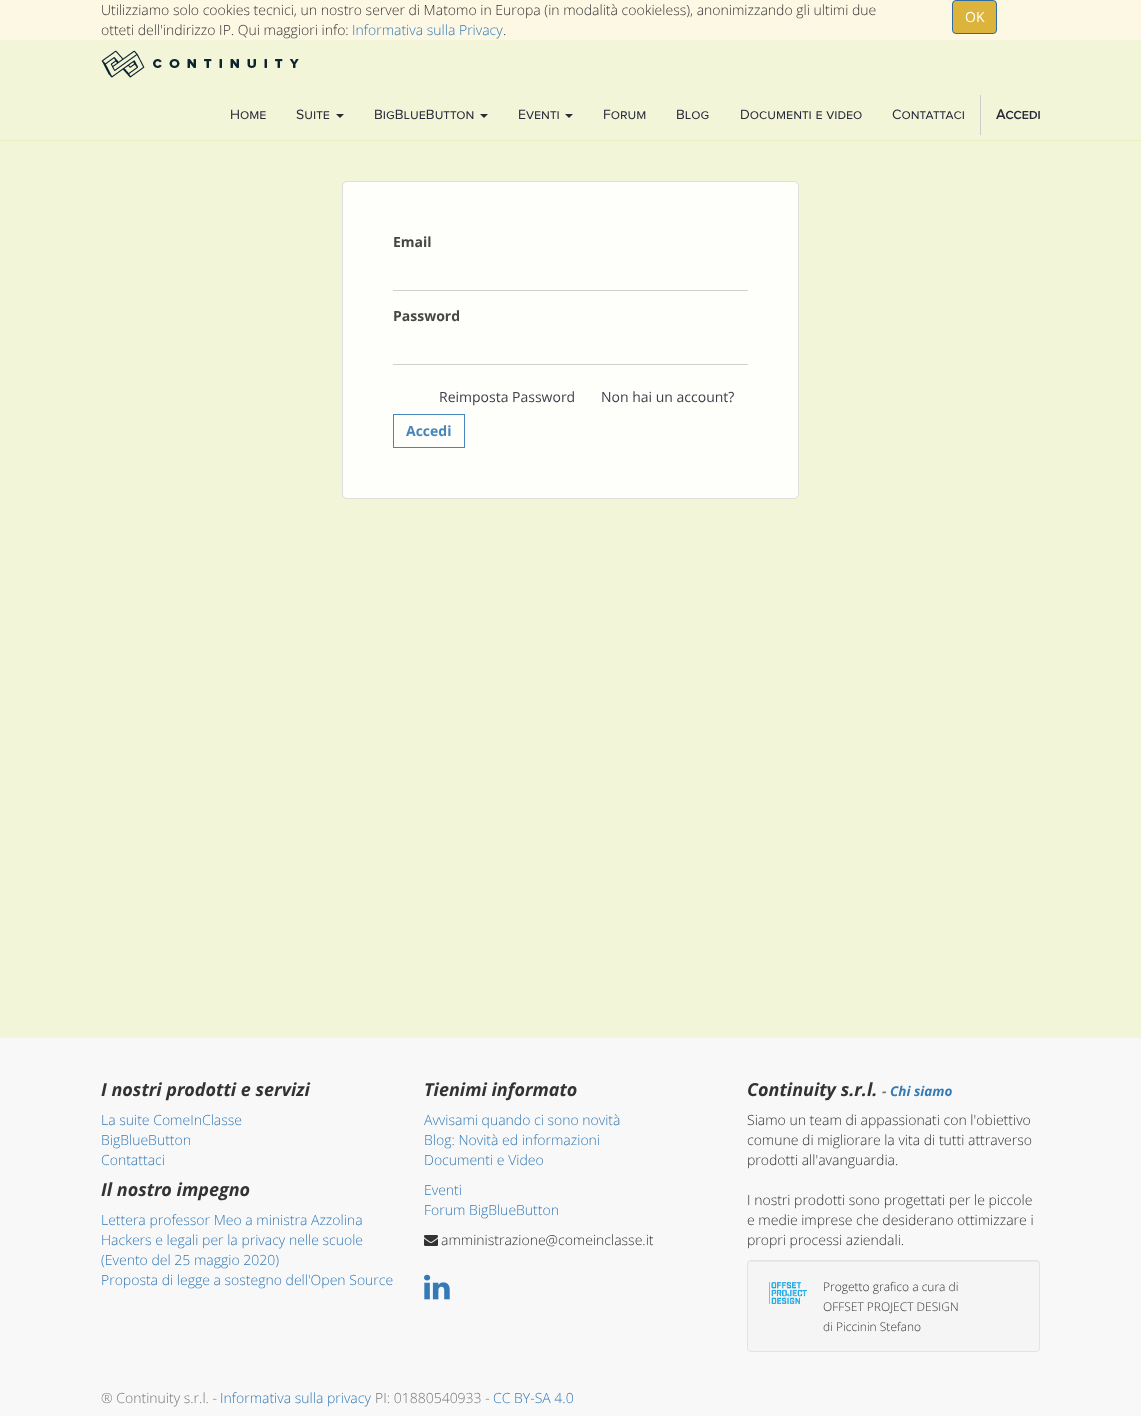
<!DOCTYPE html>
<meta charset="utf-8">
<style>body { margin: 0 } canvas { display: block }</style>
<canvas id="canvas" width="1141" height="1416"></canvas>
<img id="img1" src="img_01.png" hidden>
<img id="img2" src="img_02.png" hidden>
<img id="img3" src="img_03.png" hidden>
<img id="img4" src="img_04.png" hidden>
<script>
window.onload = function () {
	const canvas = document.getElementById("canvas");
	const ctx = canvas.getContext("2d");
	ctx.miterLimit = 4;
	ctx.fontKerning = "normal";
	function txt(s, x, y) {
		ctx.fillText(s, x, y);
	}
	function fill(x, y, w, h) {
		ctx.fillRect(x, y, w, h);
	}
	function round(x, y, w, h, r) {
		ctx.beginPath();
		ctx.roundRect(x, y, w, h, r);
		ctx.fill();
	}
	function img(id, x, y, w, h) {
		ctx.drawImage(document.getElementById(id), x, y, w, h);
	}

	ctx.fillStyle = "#F2F5D7";
	fill(0, 0, 1141, 1416);
	ctx.fillStyle = "#FCF8E3";
	fill(0, 0, 1141, 40);
	ctx.fillStyle = "#DCB43B";
	ctx.beginPath();
	ctx.roundRect(952.5, 0.5, 44, 33, 3.5);
	ctx.fill();
	ctx.strokeStyle = "#2E6DA4";
	ctx.stroke();
	ctx.fillStyle = "#E9EEBC";
	fill(0, 140, 1141, 1);
	img("img1", 101, 50, 198, 28);
	ctx.fillStyle = "#292B3A";
	ctx.beginPath();
	ctx.moveTo(336, 114);
	ctx.lineTo(344, 114);
	ctx.lineTo(340, 118);
	ctx.closePath();
	ctx.fill();
	ctx.beginPath();
	ctx.moveTo(480, 114);
	ctx.lineTo(488, 114);
	ctx.lineTo(484, 118);
	ctx.closePath();
	ctx.fill();
	ctx.beginPath();
	ctx.moveTo(565, 114);
	ctx.lineTo(573, 114);
	ctx.lineTo(569, 118);
	ctx.closePath();
	ctx.fill();
	ctx.fillStyle = "#CCCCCC";
	fill(980, 95, 1, 40);
	ctx.fillStyle = "#FEFEFB";
	ctx.beginPath();
	ctx.roundRect(342.5, 181.5, 456, 317, 4.5);
	ctx.fill();
	ctx.strokeStyle = "#DFDFDC";
	ctx.stroke();
	ctx.fillStyle = "#D0D0CD";
	fill(393, 290, 355, 1);
	fill(393, 364, 355, 1);
	ctx.strokeStyle = "#4686BA";
	ctx.strokeRect(393.5, 414.5, 71, 33);
	ctx.fillStyle = "#F8F8F8";
	fill(0, 1038, 1141, 378);
	img("img2", 424, 1235, 14, 11);
	img("img3", 424, 1274, 26, 26);
	ctx.fillStyle = "#F5F5F5";
	round(747, 1260, 293, 92, 4);
	ctx.fillStyle = "#E9E9E9";
	ctx.beginPath();
	ctx.moveTo(751, 1262);
	ctx.lineTo(1036, 1262);
	ctx.bezierCurveTo(1038, 1262, 1039, 1263, 1039, 1265);
	ctx.bezierCurveTo(1039, 1263, 1038, 1261, 1036, 1261);
	ctx.lineTo(751, 1261);
	ctx.bezierCurveTo(749, 1261, 748, 1263, 748, 1265);
	ctx.bezierCurveTo(748, 1263, 749, 1262, 751, 1262);
	ctx.closePath();
	ctx.fill();
	ctx.beginPath();
	ctx.roundRect(747.5, 1260.5, 292, 91, 3.5);
	ctx.strokeStyle = "#E3E3E3";
	ctx.stroke();
	img("img4", 769, 1282, 38, 22);
	ctx.font = "300 14px Open Sans";
	ctx.fillStyle = "#333333";
	txt("Utilizziamo solo cookies tecnici, un nostro server di Matomo in Europa (in modalità cookieless), anonimizzando gli ultimi due", 101, 15);
	txt("otteti dell'indirizzo IP. Qui maggiori info:", 101, 35);
	ctx.fillStyle = "#337AB7";
	txt("Informativa sulla Privacy", 352, 35);
	ctx.fillStyle = "#333333";
	txt(".", 503, 35);
	ctx.font = "14px Open Sans";
	ctx.fillStyle = "#FFFFFF";
	txt("OK", 965, 22);
	ctx.font = "14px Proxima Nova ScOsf";
	ctx.fillStyle = "#292B3A";
	txt("Home", 230, 119);
	txt("Suite", 296, 119);
	txt("BigBlueButton", 374, 119);
	txt("Eventi", 518, 119);
	txt("Forum", 603, 119);
	txt("Blog", 676, 119);
	txt("Documenti e video", 740, 119);
	txt("Contattaci", 892, 119);
	ctx.font = "bold 14px Proxima Nova ScOsf";
	txt("Accedi", 996, 119);
	ctx.font = "bold 14px Open Sans";
	ctx.fillStyle = "#464643";
	txt("Email", 393, 247);
	txt("Password", 393, 321);
	ctx.font = "14px Open Sans";
	ctx.fillStyle = "#3D3F4A";
	txt("Reimposta Password", 439, 402);
	txt("Non hai un account?", 601, 402);
	ctx.font = "bold 14px Open Sans";
	ctx.fillStyle = "#4686BA";
	txt("Accedi", 406, 436);
	ctx.font = "italic bold 18px Open Sans";
	ctx.fillStyle = "#333333";
	txt("I nostri prodotti e servizi", 101, 1096);
	ctx.font = "300 14px Open Sans";
	ctx.fillStyle = "#337AB7";
	txt("La suite ComeInClasse", 101, 1125);
	txt("BigBlueButton", 101, 1145);
	txt("Contattaci", 101, 1165);
	ctx.font = "italic bold 18px Open Sans";
	ctx.fillStyle = "#333333";
	txt("Il nostro impegno", 101, 1196);
	ctx.font = "300 14px Open Sans";
	ctx.fillStyle = "#337AB7";
	txt("Lettera professor Meo a ministra Azzolina", 101, 1225);
	txt("Hackers e legali per la privacy nelle scuole", 101, 1245);
	txt("(Evento del 25 maggio 2020)", 101, 1265);
	txt("Proposta di legge a sostegno dell'Open Source", 101, 1285);
	ctx.font = "italic bold 18px Open Sans";
	ctx.fillStyle = "#333333";
	txt("Tienimi informato", 424, 1096);
	ctx.font = "300 14px Open Sans";
	ctx.fillStyle = "#337AB7";
	txt("Avvisami quando ci sono novità", 424, 1125);
	txt("Blog: Novità ed informazioni", 424, 1145);
	txt("Documenti e Video", 424, 1165);
	txt("Eventi", 424, 1195);
	txt("Forum BigBlueButton", 424, 1215);
	ctx.fillStyle = "#333333";
	txt("amministrazione@comeinclasse.it", 441, 1245);
	ctx.font = "italic bold 18px Open Sans";
	txt("Continuity s.r.l.", 747, 1096);
	ctx.font = "italic bold 13.5px Open Sans";
	ctx.fillStyle = "#777777";
	txt("-", 882, 1096);
	ctx.fillStyle = "#337AB7";
	txt("Chi siamo", 890, 1096);
	ctx.font = "300 14px Open Sans";
	ctx.fillStyle = "#333333";
	txt("Siamo un team di appassionati con l'obiettivo", 747, 1125);
	txt("comune di migliorare la vita di tutti attraverso", 747, 1145);
	txt("prodotti all'avanguardia.", 747, 1165);
	txt("I nostri prodotti sono progettati per le piccole", 747, 1205);
	txt("e medie imprese che desiderano ottimizzare i", 747, 1225);
	txt("propri processi aziendali.", 747, 1245);
	ctx.font = "300 12px Open Sans";
	txt("Progetto grafico a cura di", 823, 1291);
	txt("OFFSET PROJECT DESIGN", 823, 1311);
	txt("di Piccinin Stefano", 823, 1331);
	ctx.font = "300 14px Open Sans";
	ctx.fillStyle = "#777777";
	txt("® Continuity s.r.l. -", 101, 1403);
	ctx.fillStyle = "#337AB7";
	txt("Informativa sulla privacy", 220, 1403);
	ctx.fillStyle = "#777777";
	txt("PI: 01880540933 -", 375, 1403);
	ctx.fillStyle = "#337AB7";
	txt("CC BY-SA 4.0", 493, 1403);
};
</script>
